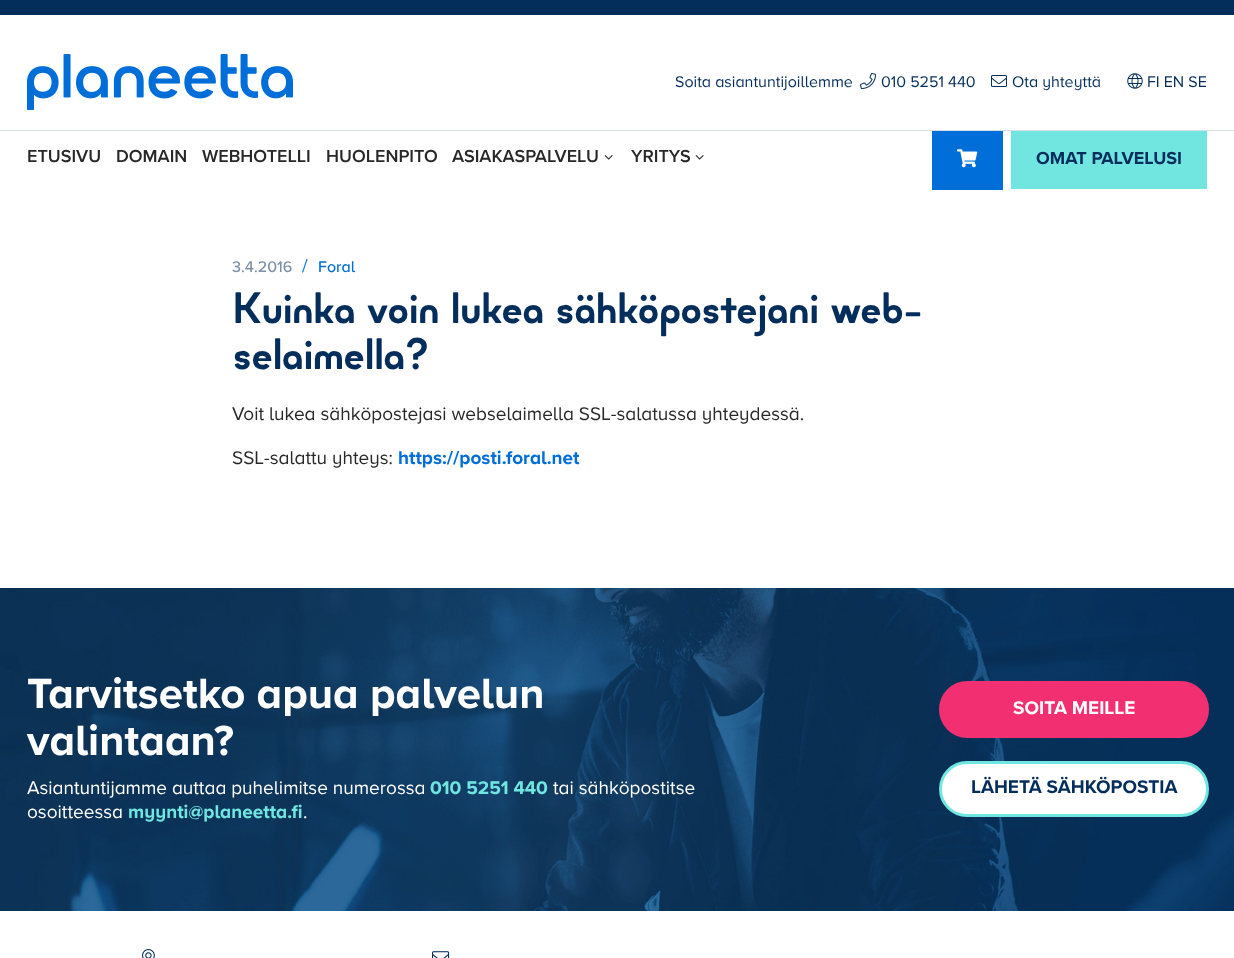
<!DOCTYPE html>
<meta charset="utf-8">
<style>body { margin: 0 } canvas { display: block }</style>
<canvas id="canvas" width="1234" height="958"></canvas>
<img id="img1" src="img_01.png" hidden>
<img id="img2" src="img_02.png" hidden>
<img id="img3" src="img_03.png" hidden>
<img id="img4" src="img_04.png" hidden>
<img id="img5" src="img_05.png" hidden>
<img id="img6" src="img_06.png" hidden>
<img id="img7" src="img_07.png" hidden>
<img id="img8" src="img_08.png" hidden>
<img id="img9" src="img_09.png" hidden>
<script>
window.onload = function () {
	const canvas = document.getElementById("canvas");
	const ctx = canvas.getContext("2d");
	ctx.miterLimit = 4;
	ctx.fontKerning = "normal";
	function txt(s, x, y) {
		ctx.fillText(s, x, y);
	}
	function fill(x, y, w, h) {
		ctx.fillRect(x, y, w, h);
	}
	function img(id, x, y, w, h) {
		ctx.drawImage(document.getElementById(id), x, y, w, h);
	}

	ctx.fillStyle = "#FFFFFF";
	fill(0, 0, 1234, 958);
	ctx.fillStyle = "#032D5B";
	fill(0, 0, 1234, 15);
	img("img1", 27, 54, 266, 56);
	img("img2", 860, 73, 16, 16);
	img("img3", 991, 75, 16, 12);
	img("img4", 1127, 73, 16, 16);
	ctx.fillStyle = "#D9DFE7";
	fill(0, 130, 1234, 1);
	img("img5", 604, 155, 9, 5);
	img("img5", 695, 155, 9, 5);
	ctx.fillStyle = "#006ED8";
	fill(932, 131, 71, 59);
	img("img6", 957, 149, 21, 19);
	ctx.fillStyle = "#71E6E1";
	fill(1011, 131, 196, 58);
	img("img7", 0, 588, 1234, 323);
	ctx.fillStyle = "#F12F71";
	ctx.beginPath();
	ctx.roundRect(940.5, 682.5, 267, 54, 27);
	ctx.fill();
	ctx.strokeStyle = "#F12F71";
	ctx.lineWidth = 3;
	ctx.stroke();
	ctx.fillStyle = "#FFFFFF";
	ctx.beginPath();
	ctx.roundRect(940.5, 762.5, 267, 53, 26.5);
	ctx.fill();
	ctx.strokeStyle = "#71E6E1";
	ctx.stroke();
	img("img8", 142, 949, 13, 9);
	img("img9", 432, 951, 18, 7);
	ctx.font = "16px 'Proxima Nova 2'";
	ctx.fillStyle = "#032D5B";
	txt("Soita asiantuntijoillemme", 675, 87);
	txt("010 5251 440", 881, 87);
	txt("Ota yhteyttä", 1012, 87);
	txt("FI EN SE", 1147, 87);
	ctx.font = "18px 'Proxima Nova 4'";
	ctx.fillStyle = "#282828";
	txt("ETUSIVU", 27, 162);
	txt("DOMAIN", 116, 162);
	txt("WEBHOTELLI", 202, 162);
	txt("HUOLENPITO", 326, 162);
	txt("ASIAKASPALVELU", 452, 162);
	txt("YRITYS", 631, 162);
	ctx.font = "18px Proxima Nova";
	ctx.fillStyle = "#032D5B";
	txt("OMAT PALVELUSI", 1036, 164);
	ctx.font = "16px 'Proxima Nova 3'";
	ctx.fillStyle = "#7D92A8";
	txt("3.4.2016", 232, 272);
	ctx.font = "19px 'Proxima Nova 2'";
	ctx.fillStyle = "#006ED8";
	txt("/", 302, 272);
	ctx.font = "16px 'Proxima Nova 3'";
	txt("Foral", 318, 272);
	ctx.letterSpacing = "-1.75px";
	ctx.font = "bold 44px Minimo";
	ctx.fillStyle = "#032D5B";
	txt("Kuinka voin lukea sähköpostejani web-", 232, 323);
	txt("selaimella?", 232, 369);
	ctx.letterSpacing = "0px";
	ctx.font = "19px 'Proxima Nova 2'";
	ctx.fillStyle = "#282828";
	txt("Voit lukea sähköpostejasi webselaimella SSL-salatussa yhteydessä.", 232, 420);
	txt("SSL-salattu yhteys:", 232, 464);
	ctx.font = "19px Proxima Nova";
	ctx.fillStyle = "#006ED8";
	txt("https://posti.foral.net", 398, 464);
	ctx.font = "43.75px Proxima Nova";
	ctx.fillStyle = "#FFFFFF";
	txt("Tarvitsetko apua palvelun", 27, 708);
	txt("valintaan?", 27, 755);
	ctx.font = "19px 'Proxima Nova 2'";
	txt("Asiantuntijamme auttaa puhelimitse numerossa", 27, 794);
	ctx.font = "19px Proxima Nova";
	ctx.fillStyle = "#71E6E1";
	txt("010 5251 440", 430, 794);
	ctx.font = "19px 'Proxima Nova 2'";
	ctx.fillStyle = "#FFFFFF";
	txt("tai sähköpostitse", 553, 794);
	txt("osoitteessa", 27, 818);
	ctx.font = "19px Proxima Nova";
	ctx.fillStyle = "#71E6E1";
	txt("myynti@planeetta.fi", 128, 818);
	ctx.font = "19px 'Proxima Nova 2'";
	ctx.fillStyle = "#FFFFFF";
	txt(".", 303, 818);
	ctx.font = "19px Proxima Nova";
	txt("SOITA MEILLE", 1013, 714);
	ctx.fillStyle = "#032D5B";
	txt("LÄHETÄ SÄHKÖPOSTIA", 971, 793);
};
</script>
